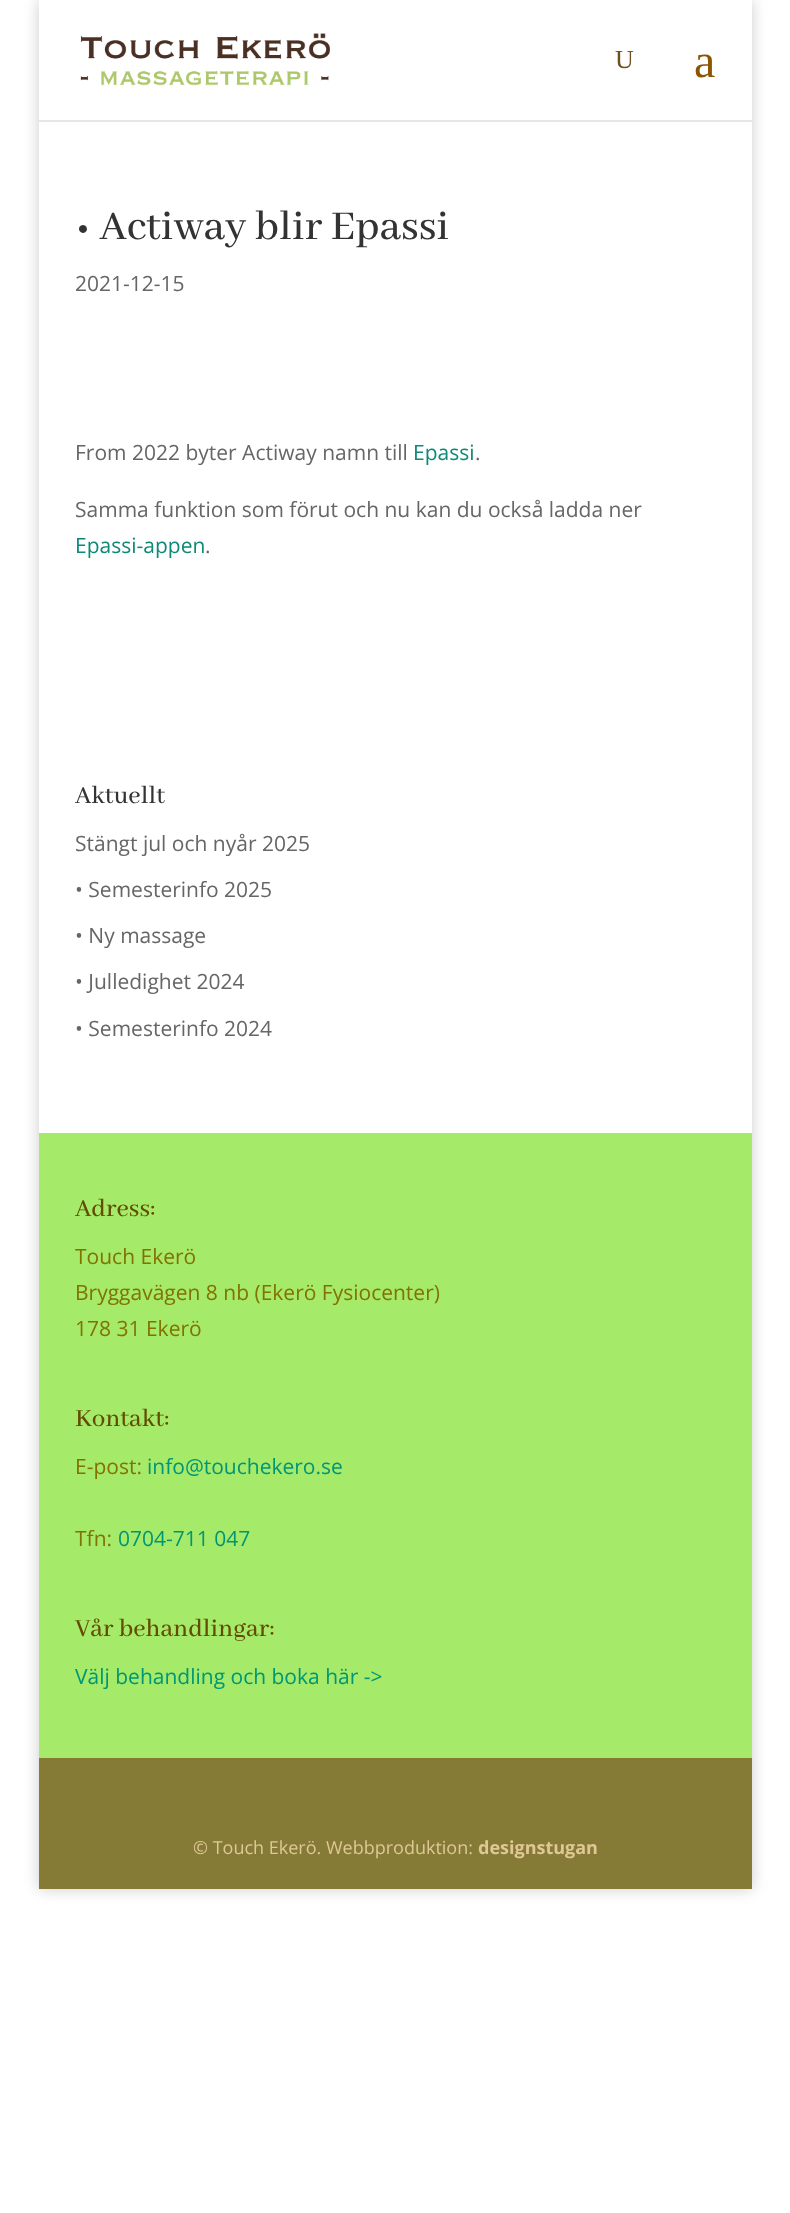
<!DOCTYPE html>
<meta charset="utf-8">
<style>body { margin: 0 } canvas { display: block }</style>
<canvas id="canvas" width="790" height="2213"></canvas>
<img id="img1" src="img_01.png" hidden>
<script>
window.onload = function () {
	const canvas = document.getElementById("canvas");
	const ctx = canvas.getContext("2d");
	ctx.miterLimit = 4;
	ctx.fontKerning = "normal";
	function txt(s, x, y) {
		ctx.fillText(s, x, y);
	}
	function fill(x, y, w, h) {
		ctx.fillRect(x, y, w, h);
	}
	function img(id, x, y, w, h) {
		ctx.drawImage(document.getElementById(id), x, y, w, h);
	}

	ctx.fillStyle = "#FFFFFF";
	fill(0, 0, 790, 2213);
	ctx.save();
	ctx.beginPath();
	ctx.moveTo(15, 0);
	ctx.lineTo(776, 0);
	ctx.lineTo(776, 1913);
	ctx.lineTo(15, 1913);
	ctx.closePath();
	ctx.moveTo(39, 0);
	ctx.lineTo(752, 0);
	ctx.lineTo(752, 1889);
	ctx.lineTo(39, 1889);
	ctx.closePath();
	ctx.clip("evenodd");
	ctx.fillStyle = "rgba(0, 0, 0, 0.2)";
	ctx.filter = "blur(7.5px)";
	ctx.beginPath();
	ctx.rect(39, 0, 713, 1889);
	ctx.fill();
	ctx.filter = "none";
	ctx.restore();
	ctx.fillStyle = "#E6E6E6";
	ctx.beginPath();
	ctx.moveTo(39, 120);
	ctx.lineTo(39, 122);
	ctx.lineTo(752, 122);
	ctx.lineTo(752, 2);
	ctx.lineTo(752, 120);
	ctx.closePath();
	ctx.fill();
	ctx.fillStyle = "#FFFFFF";
	fill(751, 0, 1, 120);
	img("img1", 80, 33, 250, 53);
	fill(751, 122, 1, 1011);
	ctx.fillStyle = "rgba(102, 219, 0, 0.59)";
	fill(39, 1133, 713, 756);
	ctx.fillStyle = "rgba(99, 0, 0, 0.48)";
	fill(39, 1758, 713, 131);
	ctx.font = "26px Liberation Serif";
	ctx.fillStyle = "#70501C";
	txt("U", 615, 68);
	ctx.font = "48px Liberation Serif";
	ctx.fillStyle = "#8C5600";
	txt("a", 694, 77);
	ctx.font = "500 45px Abhaya Libre Medium";
	ctx.fillStyle = "#333333";
	txt("• Actiway blir Epassi", 75, 239);
	ctx.font = "21px Open Sans";
	ctx.fillStyle = "#666666";
	txt("2021-12-15", 75, 291);
	txt("From 2022 byter Actiway namn till", 75, 460);
	ctx.fillStyle = "#0D8977";
	txt("Epassi", 413, 460);
	ctx.fillStyle = "#666666";
	txt(".", 475, 460);
	txt("Samma funktion som förut och nu kan du också ladda ner", 75, 517);
	ctx.fillStyle = "#0D8977";
	txt("Epassi-appen", 75, 553);
	ctx.fillStyle = "#666666";
	txt(".", 205, 553);
	ctx.font = "500 27px Abhaya Libre Medium";
	ctx.fillStyle = "#333333";
	txt("Aktuellt", 75, 803);
	ctx.font = "21px Open Sans";
	ctx.fillStyle = "#666666";
	txt("Stängt jul och nyår 2025", 75, 851);
	txt("• Semesterinfo 2025", 75, 897);
	txt("• Ny massage", 75, 943);
	txt("• Julledighet 2024", 75, 989);
	txt("• Semesterinfo 2024", 75, 1036);
	ctx.font = "500 27px Abhaya Libre Medium";
	ctx.fillStyle = "#634C00";
	txt("Adress:", 75, 1216);
	ctx.font = "21px Open Sans";
	ctx.fillStyle = "#827200";
	txt("Touch Ekerö", 75, 1264);
	txt("Bryggavägen 8 nb (Ekerö Fysiocenter)", 75, 1300);
	txt("178 31 Ekerö", 75, 1336);
	ctx.font = "500 27px Abhaya Libre Medium";
	ctx.fillStyle = "#634C00";
	txt("Kontakt:", 75, 1426);
	ctx.font = "21px Open Sans";
	ctx.fillStyle = "#827200";
	txt("E-post:", 75, 1474);
	ctx.fillStyle = "#009675";
	txt("info@touchekero.se", 147, 1474);
	ctx.fillStyle = "#827200";
	txt("Tfn:", 75, 1546);
	ctx.fillStyle = "#009675";
	txt("0704-711 047", 118, 1546);
	ctx.font = "500 27px Abhaya Libre Medium";
	ctx.fillStyle = "#634C00";
	txt("Vår behandlingar:", 75, 1636);
	ctx.font = "21px Open Sans";
	ctx.fillStyle = "#009675";
	txt("Välj behandling och boka här ->", 75, 1684);
	ctx.font = "18px Open Sans";
	ctx.fillStyle = "#E0C896";
	txt("© Touch Ekerö. Webbproduktion:", 193, 1854);
	ctx.font = "bold 18px Open Sans";
	txt("designstugan", 478, 1854);
};
</script>
